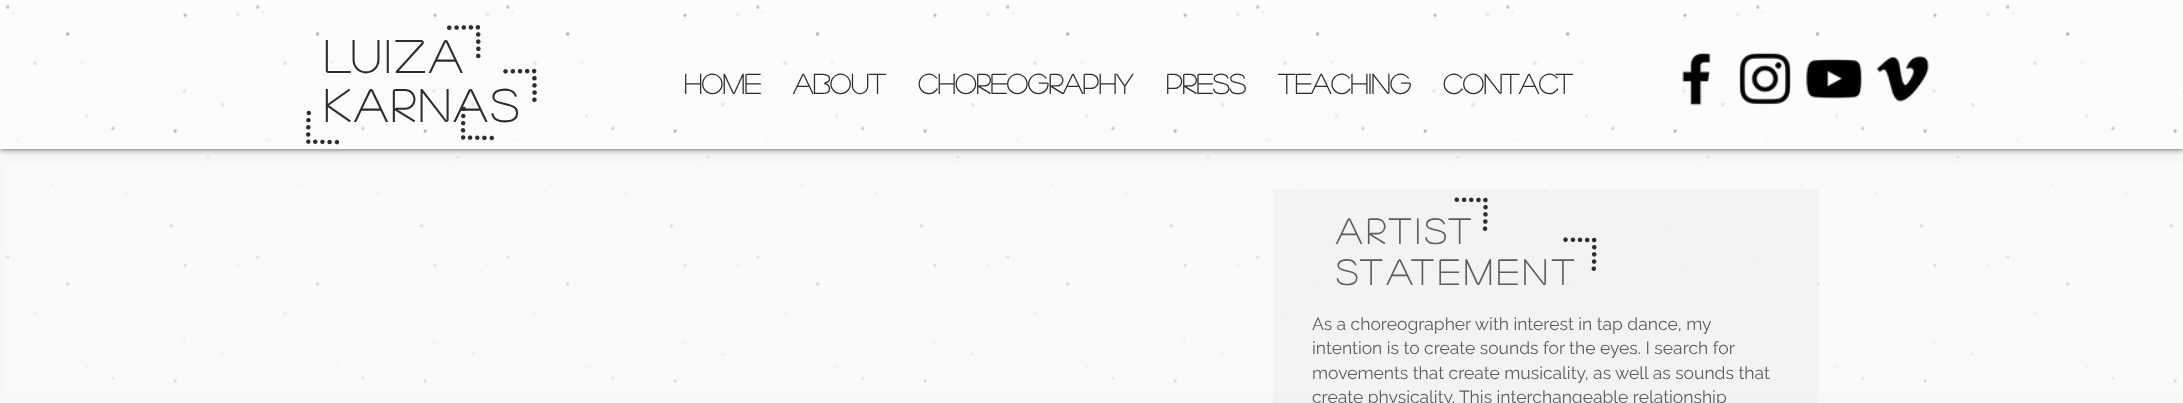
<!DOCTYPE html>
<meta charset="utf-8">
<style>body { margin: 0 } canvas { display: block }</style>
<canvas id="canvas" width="2183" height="403"></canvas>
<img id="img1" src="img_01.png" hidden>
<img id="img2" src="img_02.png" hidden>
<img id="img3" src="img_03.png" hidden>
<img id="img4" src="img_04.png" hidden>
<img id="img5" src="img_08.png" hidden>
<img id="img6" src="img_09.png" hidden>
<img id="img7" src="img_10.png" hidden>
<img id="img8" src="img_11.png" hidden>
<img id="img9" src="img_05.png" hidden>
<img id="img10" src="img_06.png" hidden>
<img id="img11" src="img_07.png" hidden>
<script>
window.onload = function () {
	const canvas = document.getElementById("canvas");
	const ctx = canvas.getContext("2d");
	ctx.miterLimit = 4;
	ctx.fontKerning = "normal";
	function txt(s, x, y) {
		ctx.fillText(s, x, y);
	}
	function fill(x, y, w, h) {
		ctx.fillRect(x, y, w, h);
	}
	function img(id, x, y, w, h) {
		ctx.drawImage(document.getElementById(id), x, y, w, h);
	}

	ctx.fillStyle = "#F7F7F7";
	fill(0, 0, 2183, 403);
	img("img1", 6, 4, 2177, 388);
	ctx.save();
	ctx.beginPath();
	ctx.moveTo(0, 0);
	ctx.lineTo(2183, 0);
	ctx.lineTo(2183, 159);
	ctx.lineTo(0, 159);
	ctx.closePath();
	ctx.moveTo(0, 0);
	ctx.lineTo(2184, 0);
	ctx.lineTo(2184, 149);
	ctx.lineTo(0, 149);
	ctx.closePath();
	ctx.clip("evenodd");
	ctx.fillStyle = "rgba(0, 0, 0, 0.7)";
	ctx.filter = "blur(3px)";
	ctx.beginPath();
	ctx.rect(0, 0, 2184, 149);
	ctx.fill();
	ctx.filter = "none";
	ctx.restore();
	ctx.fillStyle = "rgba(255, 255, 255, 0.6)";
	fill(0, 0, 2183, 149);
	img("img2", 447, 25, 34, 34);
	img("img3", 503, 68, 34, 34);
	img("img4", 306, 110, 34, 35);
	ctx.fillStyle = "rgba(250, 250, 250, 0.83)";
	fill(6, 162, 2177, 230);
	ctx.fillStyle = "rgba(241, 241, 241, 0.88)";
	fill(1273, 189, 545, 214);
	img("img5", 1682, 52, 29, 54);
	img("img6", 1739, 52, 52, 53);
	img("img7", 1806, 58, 56, 41);
	img("img8", 1876, 56, 53, 46);
	ctx.letterSpacing = "4.5px";
	ctx.font = "bold 45px 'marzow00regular'";
	ctx.fillStyle = "#2C2C2B";
	txt("LUIZA", 324, 73);
	txt("KARNAS", 324, 122);
	img("img9", 460, 106, 34, 35);
	ctx.letterSpacing = "5.25px";
	ctx.font = "bold 35px 'marzow00regular'";
	ctx.fillStyle = "#5E5D5D";
	txt("ARTIST", 1336, 244);
	img("img10", 1454, 197, 34, 34);
	txt("STATEMENT", 1336, 285);
	img("img11", 1563, 237, 34, 34);
	ctx.letterSpacing = "0px";
	ctx.font = "17.5px Raleway";
	txt("As a choreographer with interest in tap dance, my", 1312, 330);
	txt("intention is to create sounds for the eyes. I search for", 1312, 354);
	txt("movements that create musicality, as well as sounds that", 1312, 379);
	txt("create physicality. This interchangeable relationship", 1312, 403);
	ctx.font = "bold 27.5px 'marzow00regular'";
	ctx.fillStyle = "#2C2C2B";
	txt("HOME", 684, 94);
	txt("ABOUT", 793, 94);
	txt("CHOREOGRAPHY", 918, 94);
	txt("PRESS", 1166, 94);
	txt("TEACHING", 1278, 94);
	txt("CONTACT", 1443, 94);
};
</script>
